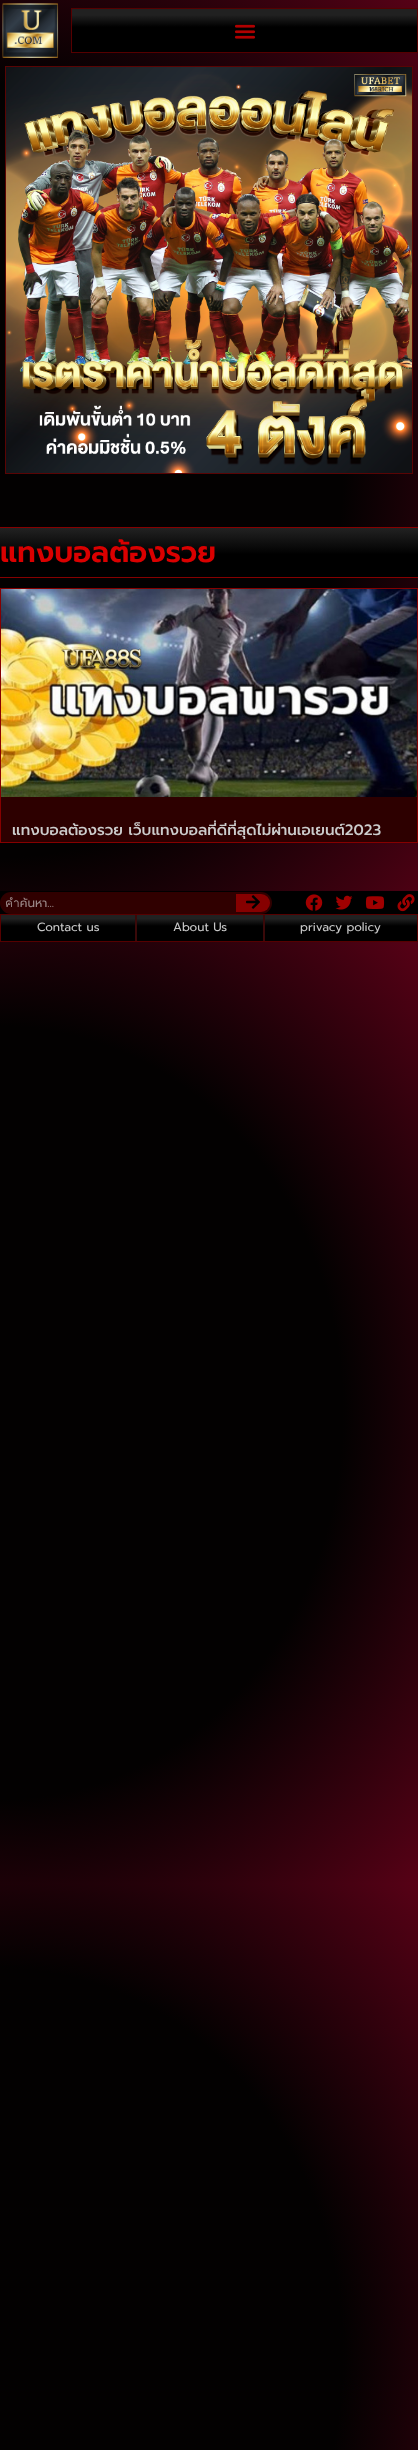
<!DOCTYPE html>
<meta charset="utf-8">
<style>body { margin: 0 } canvas { display: block }</style>
<canvas id="canvas" width="418" height="2450"></canvas>
<img id="img1" src="img_01.png" hidden>
<img id="img2" src="img_02.png" hidden>
<img id="img3" src="img_03.png" hidden>
<img id="img4" src="img_04.png" hidden>
<img id="img5" src="img_05.png" hidden>
<img id="img6" src="img_06.png" hidden>
<img id="img7" src="img_07.png" hidden>
<img id="img8" src="img_08.png" hidden>
<img id="img9" src="img_09.png" hidden>
<script>
window.onload = function () {
	const canvas = document.getElementById("canvas");
	const ctx = canvas.getContext("2d");
	ctx.miterLimit = 4;
	ctx.fontKerning = "normal";
	function txt(s, x, y) {
		ctx.fillText(s, x, y);
	}
	function fill(x, y, w, h) {
		ctx.fillRect(x, y, w, h);
	}
	function round(x, y, w, h, r) {
		ctx.beginPath();
		ctx.roundRect(x, y, w, h, r);
		ctx.fill();
	}
	function img(id, x, y, w, h) {
		ctx.drawImage(document.getElementById(id), x, y, w, h);
	}
	let gradient;

	ctx.fillStyle = "#FFFFFF";
	fill(0, 0, 418, 2450);
	gradient = ctx.createRadialGradient(0, 417.96, 0, 0, 417.96, 591);
	gradient.addColorStop(0.58, "#030101");
	gradient.addColorStop(1, "#570116");
	ctx.fillStyle = gradient;
	ctx.beginPath();
	ctx.rect(0, 0, 418, 891);
	ctx.save();
	ctx.clip();
	ctx.scale(1, 666 / 591);
	ctx.fillRect(0, 0, 418, 2175);
	ctx.restore();
	gradient = ctx.createRadialGradient(0, 1253.88, 0, 0, 1253.88, 591);
	gradient.addColorStop(0.58, "#030101");
	gradient.addColorStop(1, "#570116");
	ctx.fillStyle = gradient;
	ctx.beginPath();
	ctx.rect(0, 942, 418, 942);
	ctx.save();
	ctx.clip();
	ctx.scale(1, 666 / 591);
	ctx.fillRect(0, 0, 418, 2175);
	ctx.restore();
	gradient = ctx.createRadialGradient(0, 2089.8, 0, 0, 2089.8, 591);
	gradient.addColorStop(0.58, "#030101");
	gradient.addColorStop(1, "#570116");
	ctx.fillStyle = gradient;
	ctx.beginPath();
	ctx.rect(0, 1884, 418, 566);
	ctx.save();
	ctx.clip();
	ctx.scale(1, 666 / 591);
	ctx.fillRect(0, 0, 418, 2175);
	ctx.restore();
	img("img1", 2, 3, 57, 55);
	gradient = ctx.createLinearGradient(245, 9, 245, 52);
	gradient.addColorStop(0.14, "#212121");
	gradient.addColorStop(0.42, "#000000");
	ctx.fillStyle = gradient;
	fill(72, 9, 345, 43);
	ctx.strokeStyle = "#560000";
	ctx.strokeRect(71.5, 8.5, 346, 44);
	img("img2", 234, 24, 22, 15);
	ctx.strokeStyle = "#590404";
	ctx.strokeRect(5.5, 66.5, 407, 407);
	img("img3", 6, 67, 406, 406);
	gradient = ctx.createLinearGradient(209, 528, 209, 577);
	gradient.addColorStop(0, "#222222");
	gradient.addColorStop(0.54, "#000000");
	ctx.fillStyle = gradient;
	fill(0, 528, 418, 49);
	ctx.fillStyle = "#860000";
	fill(0, 527, 418, 1);
	fill(0, 577, 418, 1);
	ctx.fillStyle = "#2D0000";
	fill(1, 797, 416, 45);
	ctx.strokeStyle = "#860000";
	ctx.strokeRect(0.5, 588.5, 417, 254);
	img("img4", 1, 589, 416, 208);
	ctx.fillStyle = "#000000";
	fill(0, 891, 418, 23);
	ctx.fillStyle = "#300000";
	round(0, 892, 272, 22, 11);
	ctx.fillStyle = "#860000";
	ctx.beginPath();
	ctx.roundRect(236, 894, 34, 18, [0, 9, 9, 0]);
	ctx.fill();
	img("img5", 246, 895, 14, 14);
	img("img6", 305, 894, 18, 17);
	img("img7", 335, 895, 18, 15);
	img("img8", 365, 896, 20, 13);
	img("img9", 397, 894, 18, 18);
	gradient = ctx.createLinearGradient(209, 915, 209, 941);
	gradient.addColorStop(0.14, "#212121");
	gradient.addColorStop(0.42, "#000000");
	ctx.fillStyle = gradient;
	fill(1, 915, 416, 26);
	ctx.strokeStyle = "#560000";
	ctx.strokeRect(0.5, 914.5, 417, 27);
	ctx.fillStyle = "#3A0909";
	fill(135, 915, 2, 26);
	fill(263, 915, 2, 26);
	ctx.font = "600 29px Prompt";
	ctx.fillStyle = "#DA0000";
	txt("แทงบอลต้องรวย", 0, 562);
	ctx.font = "500 15px Prompt";
	ctx.fillStyle = "#CCCCCC";
	txt("แทงบอลต้องรวย เว็บแทงบอลที่ดีที่สุดไม่ผ่านเอเยนต์2023", 12, 835);
	ctx.save();
	ctx.beginPath();
	ctx.rect(5, 894, 215, 18);
	ctx.clip();
	ctx.font = "12px Prompt";
	ctx.fillStyle = "#9A8787";
	txt("คำค้นหา...", 5, 907);
	ctx.restore();
	ctx.font = "12px Prompt";
	ctx.fillStyle = "#C6C6C6";
	txt("Contact us", 37, 931);
	txt("About Us", 173, 931);
	txt("privacy policy", 300, 931);
};
</script>
